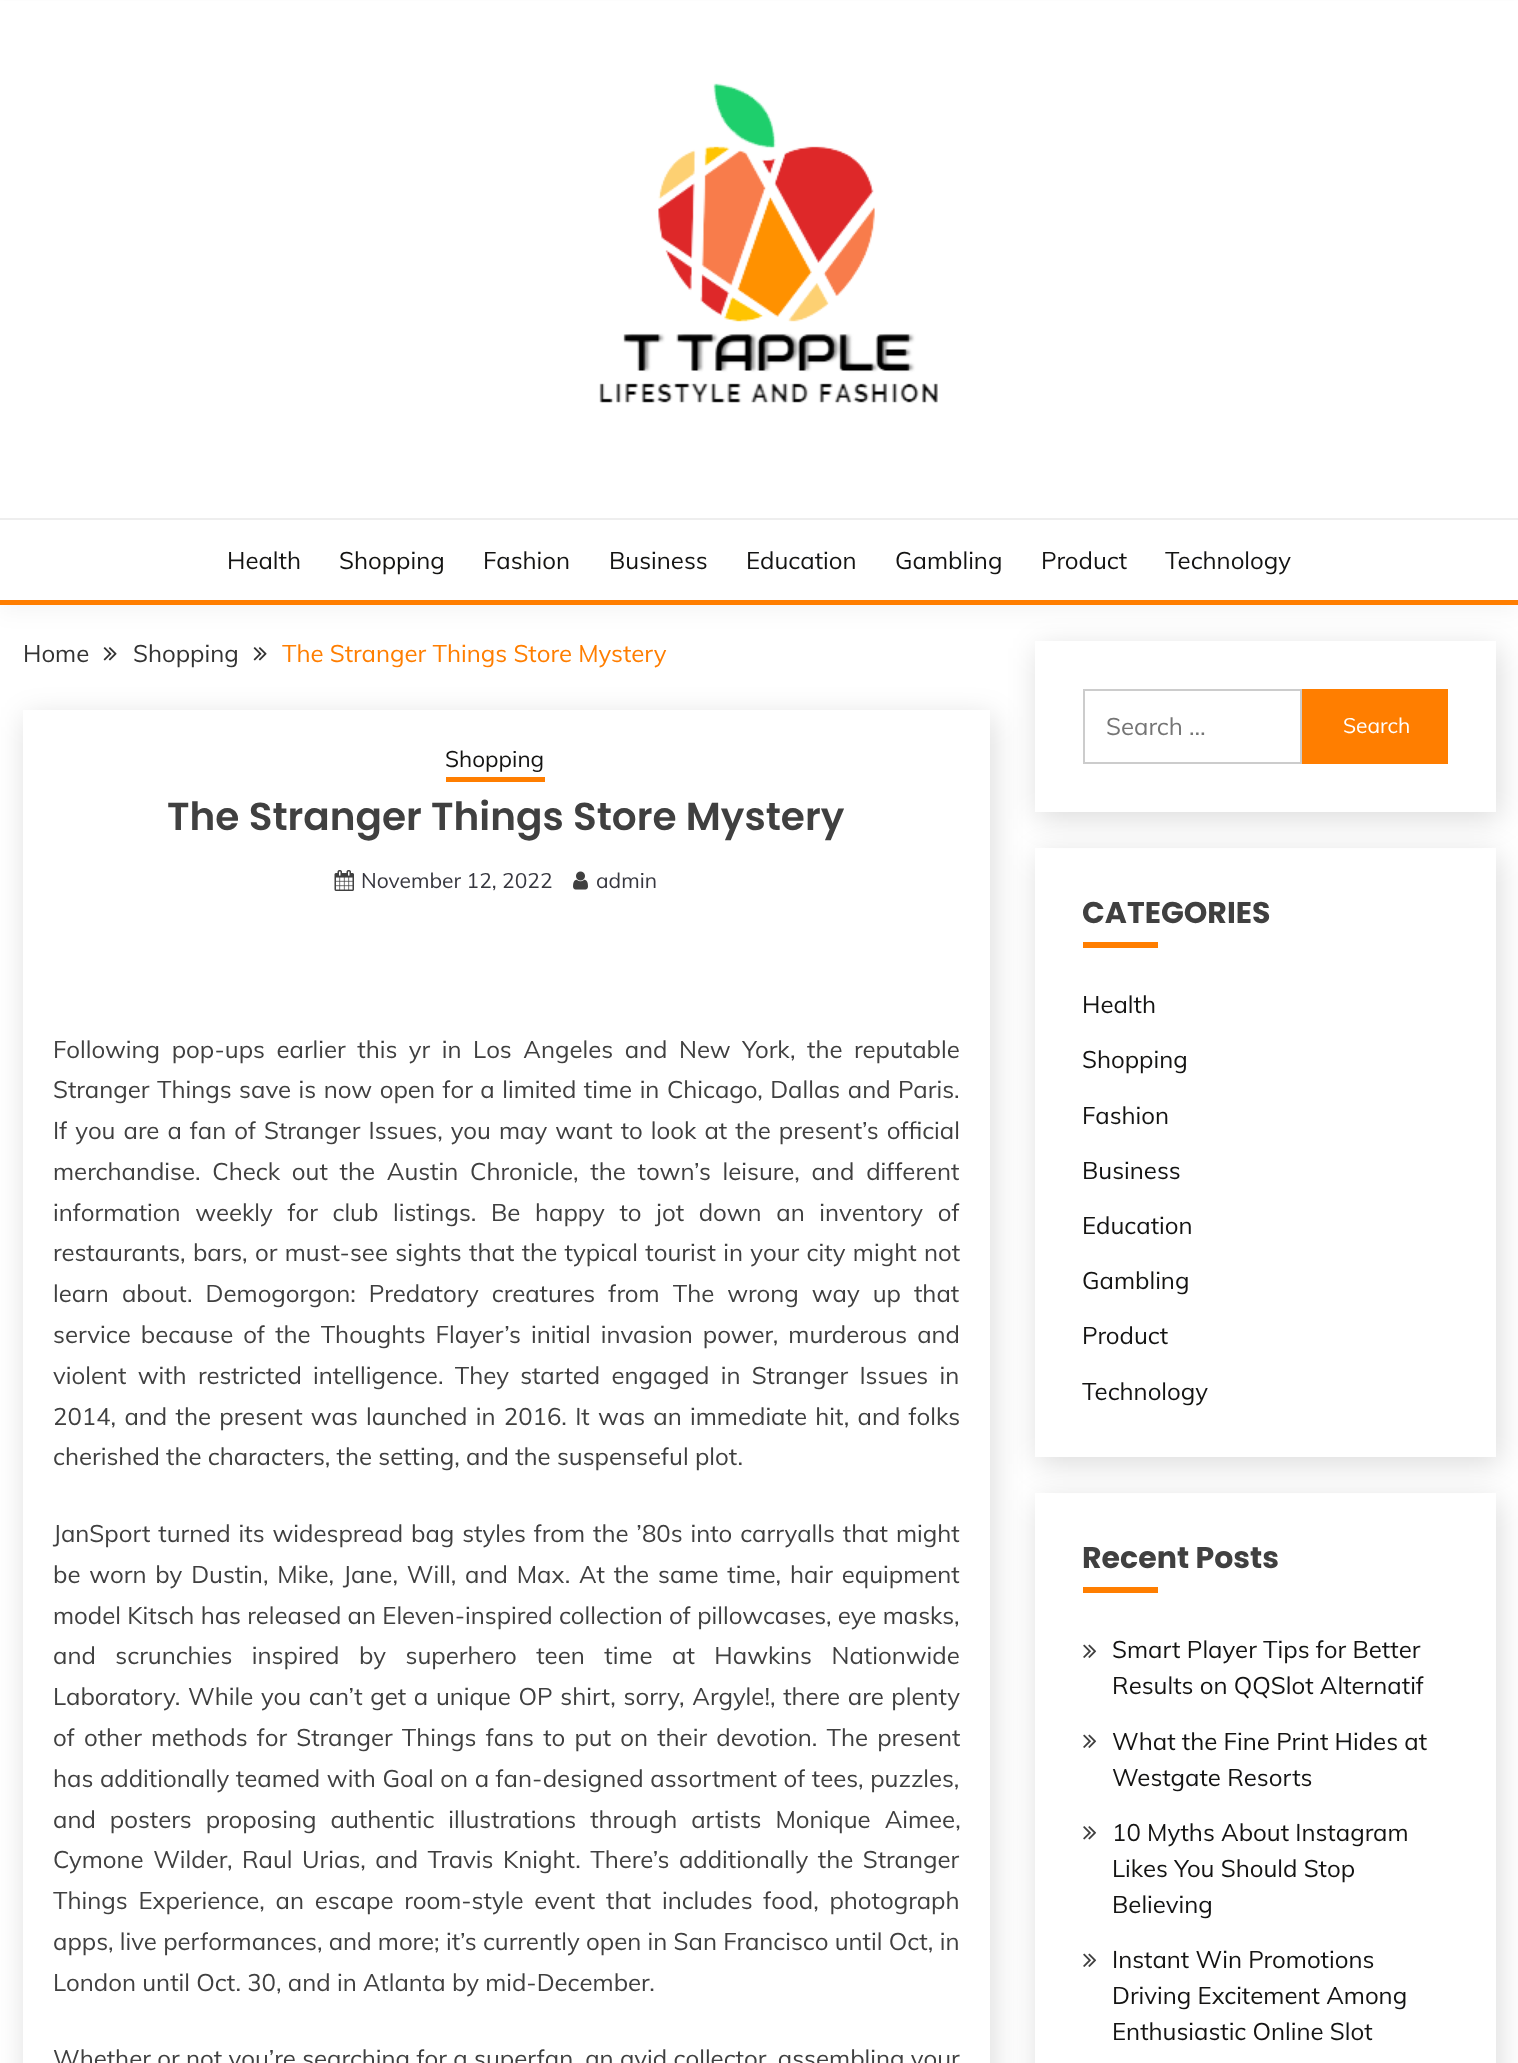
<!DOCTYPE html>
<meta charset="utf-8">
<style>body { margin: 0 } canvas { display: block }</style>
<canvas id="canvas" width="1518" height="2063"></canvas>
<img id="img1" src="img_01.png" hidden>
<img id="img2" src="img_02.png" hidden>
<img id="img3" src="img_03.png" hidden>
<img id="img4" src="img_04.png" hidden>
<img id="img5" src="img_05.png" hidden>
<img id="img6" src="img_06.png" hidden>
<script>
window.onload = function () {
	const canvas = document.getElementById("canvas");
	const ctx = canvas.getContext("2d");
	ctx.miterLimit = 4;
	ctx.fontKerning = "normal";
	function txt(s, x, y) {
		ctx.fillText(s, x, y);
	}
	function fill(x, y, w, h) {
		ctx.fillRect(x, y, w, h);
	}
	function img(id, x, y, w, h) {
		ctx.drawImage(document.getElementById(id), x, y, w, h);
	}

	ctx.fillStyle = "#FFFFFF";
	fill(0, 0, 1518, 2063);
	ctx.fillStyle = "rgba(0, 0, 0, 0.04)";
	ctx.filter = "blur(11px)";
	ctx.beginPath();
	ctx.rect(0, 8, 1518, 604);
	ctx.fill();
	ctx.filter = "none";
	ctx.fillStyle = "#FFFFFF";
	fill(0, 1, 1518, 599);
	ctx.fillStyle = "#EEEEEE";
	fill(0, 518, 1518, 2);
	img("img1", 599, 83, 339, 320);
	ctx.save();
	ctx.beginPath();
	ctx.moveTo(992, 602);
	ctx.lineTo(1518, 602);
	ctx.lineTo(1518, 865);
	ctx.lineTo(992, 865);
	ctx.closePath();
	ctx.moveTo(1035, 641);
	ctx.lineTo(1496, 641);
	ctx.lineTo(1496, 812);
	ctx.lineTo(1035, 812);
	ctx.closePath();
	ctx.clip("evenodd");
	ctx.fillStyle = "rgba(0, 0, 0, 0.14)";
	ctx.filter = "blur(15px)";
	ctx.beginPath();
	ctx.rect(1038, 648, 461, 171);
	ctx.fill();
	ctx.filter = "none";
	ctx.restore();
	ctx.fillStyle = "#FF7E00";
	fill(0, 600, 1518, 5);
	img("img2", 103, 647, 14, 14);
	img("img2", 253, 647, 14, 14);
	ctx.save();
	ctx.beginPath();
	ctx.moveTo(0, 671);
	ctx.lineTo(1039, 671);
	ctx.lineTo(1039, 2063);
	ctx.lineTo(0, 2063);
	ctx.closePath();
	ctx.moveTo(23, 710);
	ctx.lineTo(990, 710);
	ctx.lineTo(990, 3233);
	ctx.lineTo(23, 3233);
	ctx.closePath();
	ctx.clip("evenodd");
	ctx.fillStyle = "rgba(0, 0, 0, 0.14)";
	ctx.filter = "blur(15px)";
	ctx.beginPath();
	ctx.rect(26, 717, 967, 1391);
	ctx.fill();
	ctx.filter = "none";
	ctx.restore();
	fill(446, 777, 99, 5);
	img("img3", 334, 870, 20, 21);
	img("img4", 573, 871, 15, 19);
	ctx.strokeStyle = "#CCCCCC";
	ctx.lineWidth = 2;
	ctx.strokeRect(1084, 690, 217, 73);
	fill(1302, 689, 146, 75);
	ctx.save();
	ctx.beginPath();
	ctx.moveTo(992, 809);
	ctx.lineTo(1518, 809);
	ctx.lineTo(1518, 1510);
	ctx.lineTo(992, 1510);
	ctx.closePath();
	ctx.moveTo(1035, 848);
	ctx.lineTo(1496, 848);
	ctx.lineTo(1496, 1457);
	ctx.lineTo(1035, 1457);
	ctx.closePath();
	ctx.clip("evenodd");
	ctx.fillStyle = "rgba(0, 0, 0, 0.14)";
	ctx.filter = "blur(15px)";
	ctx.beginPath();
	ctx.rect(1038, 855, 461, 609);
	ctx.fill();
	ctx.filter = "none";
	ctx.restore();
	fill(1083, 942, 75, 6);
	ctx.save();
	ctx.beginPath();
	ctx.moveTo(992, 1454);
	ctx.lineTo(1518, 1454);
	ctx.lineTo(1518, 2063);
	ctx.lineTo(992, 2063);
	ctx.closePath();
	ctx.moveTo(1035, 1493);
	ctx.lineTo(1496, 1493);
	ctx.lineTo(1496, 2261);
	ctx.lineTo(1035, 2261);
	ctx.closePath();
	ctx.clip("evenodd");
	ctx.fillStyle = "rgba(0, 0, 0, 0.14)";
	ctx.filter = "blur(15px)";
	ctx.beginPath();
	ctx.rect(1038, 1500, 461, 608);
	ctx.fill();
	ctx.filter = "none";
	ctx.restore();
	fill(1083, 1587, 75, 6);
	img("img5", 1083, 1644, 14, 14);
	img("img5", 1083, 1734, 14, 14);
	img("img6", 1083, 1826, 14, 14);
	img("img5", 1083, 1953, 14, 14);
	ctx.font = "24px Muli";
	ctx.fillStyle = "#141413";
	txt("Health", 227, 569);
	txt("Shopping", 339, 569);
	txt("Fashion", 483, 569);
	txt("Business", 609, 569);
	txt("Education", 746, 569);
	txt("Gambling", 895, 569);
	txt("Product", 1041, 569);
	txt("Technology", 1165, 569);
	ctx.fillStyle = "#333333";
	txt("Home", 23, 662);
	txt("Shopping", 133, 662);
	ctx.fillStyle = "#FF7E00";
	txt("The Stranger Things Store Mystery", 282, 662);
	ctx.font = "22.5px Muli";
	ctx.fillStyle = "#141413";
	txt("Shopping", 445, 767);
	ctx.font = "600 39px Poppins";
	ctx.fillStyle = "#404040";
	txt("The Stranger Things Store Mystery", 167, 830);
	ctx.font = "21px Muli";
	ctx.fillStyle = "#37373F";
	txt("November 12, 2022", 361, 888);
	txt("admin", 596, 888);
	ctx.wordSpacing = "5.25px";
	ctx.font = "24px Muli";
	ctx.fillStyle = "#404040";
	txt("Following pop-ups earlier this yr in Los Angeles and New York, the reputable", 53, 1058);
	ctx.wordSpacing = "1.25px";
	txt("Stranger Things save is now open for a limited time in Chicago, Dallas and Paris.", 53, 1098);
	ctx.wordSpacing = "1.75px";
	txt("If you are a fan of Stranger Issues, you may want to look at the present’s official", 53, 1139);
	ctx.wordSpacing = "5.5px";
	txt("merchandise. Check out the Austin Chronicle, the town’s leisure, and different", 53, 1180);
	ctx.wordSpacing = "8.4px";
	txt("information weekly for club listings. Be happy to jot down an inventory of", 53, 1221);
	ctx.wordSpacing = "1.1px";
	txt("restaurants, bars, or must-see sights that the typical tourist in your city might not", 53, 1261);
	ctx.wordSpacing = "6.75px";
	txt("learn about. Demogorgon: Predatory creatures from The wrong way up that", 53, 1302);
	ctx.wordSpacing = "3.75px";
	txt("service because of the Thoughts Flayer’s initial invasion power, murderous and", 53, 1343);
	ctx.wordSpacing = "5px";
	txt("violent with restricted intelligence. They started engaged in Stranger Issues in", 53, 1384);
	ctx.wordSpacing = "2px";
	txt("2014, and the present was launched in 2016. It was an immediate hit, and folks", 53, 1425);
	ctx.wordSpacing = "0px";
	txt("cherished the characters, the setting, and the suspenseful plot.", 53, 1465);
	ctx.wordSpacing = "1.6px";
	txt("JanSport turned its widespread bag styles from the ’80s into carryalls that might", 53, 1542);
	ctx.wordSpacing = "2.6px";
	txt("be worn by Dustin, Mike, Jane, Will, and Max. At the same time, hair equipment", 53, 1583);
	ctx.wordSpacing = "0px";
	txt("model Kitsch has released an Eleven-inspired collection of pillowcases, eye masks,", 53, 1624);
	ctx.wordSpacing = "13.25px";
	txt("and scrunchies inspired by superhero teen time at Hawkins Nationwide", 53, 1664);
	ctx.wordSpacing = "1.4px";
	txt("Laboratory. While you can’t get a unique OP shirt, sorry, Argyle!, there are plenty", 53, 1705);
	ctx.wordSpacing = "2.9px";
	txt("of other methods for Stranger Things fans to put on their devotion. The present", 53, 1746);
	ctx.wordSpacing = "0.3px";
	txt("has additionally teamed with Goal on a fan-designed assortment of tees, puzzles,", 53, 1787);
	ctx.wordSpacing = "7.75px";
	txt("and posters proposing authentic illustrations through artists Monique Aimee,", 53, 1828);
	ctx.wordSpacing = "3.25px";
	txt("Cymone Wilder, Raul Urias, and Travis Knight. There’s additionally the Stranger", 53, 1868);
	ctx.wordSpacing = "4.5px";
	txt("Things Experience, an escape room-style event that includes food, photograph", 53, 1909);
	ctx.wordSpacing = "0px";
	txt("apps, live performances, and more; it’s currently open in San Francisco until Oct, in", 53, 1950);
	txt("London until Oct. 30, and in Atlanta by mid-December.", 53, 1991);
	ctx.wordSpacing = "0.1px";
	txt("Whether or not you’re searching for a superfan, an avid collector, assembling your", 53, 2067);
	ctx.wordSpacing = "0px";
	ctx.fillStyle = "#757575";
	txt("Search …", 1106, 735);
	ctx.font = "21px Muli";
	ctx.fillStyle = "#FFFFFF";
	txt("Search", 1343, 733);
	ctx.font = "bold 30px Poppins";
	ctx.fillStyle = "#404040";
	txt("CATEGORIES", 1082, 923);
	ctx.font = "24px Muli";
	ctx.fillStyle = "#141413";
	txt("Health", 1082, 1013);
	txt("Shopping", 1082, 1068);
	txt("Fashion", 1082, 1124);
	txt("Business", 1082, 1179);
	txt("Education", 1082, 1234);
	txt("Gambling", 1082, 1289);
	txt("Product", 1082, 1344);
	txt("Technology", 1082, 1400);
	ctx.font = "bold 30px Poppins";
	ctx.fillStyle = "#404040";
	txt("Recent Posts", 1082, 1568);
	ctx.font = "24px Muli";
	ctx.fillStyle = "#141413";
	txt("Smart Player Tips for Better", 1112, 1658);
	txt("Results on QQSlot Alternatif", 1112, 1694);
	txt("What the Fine Print Hides at", 1112, 1750);
	txt("Westgate Resorts", 1112, 1786);
	txt("10 Myths About Instagram", 1112, 1841);
	txt("Likes You Should Stop", 1112, 1877);
	txt("Believing", 1112, 1913);
	txt("Instant Win Promotions", 1112, 1968);
	txt("Driving Excitement Among", 1112, 2004);
	txt("Enthusiastic Online Slot", 1112, 2040);
};
</script>
